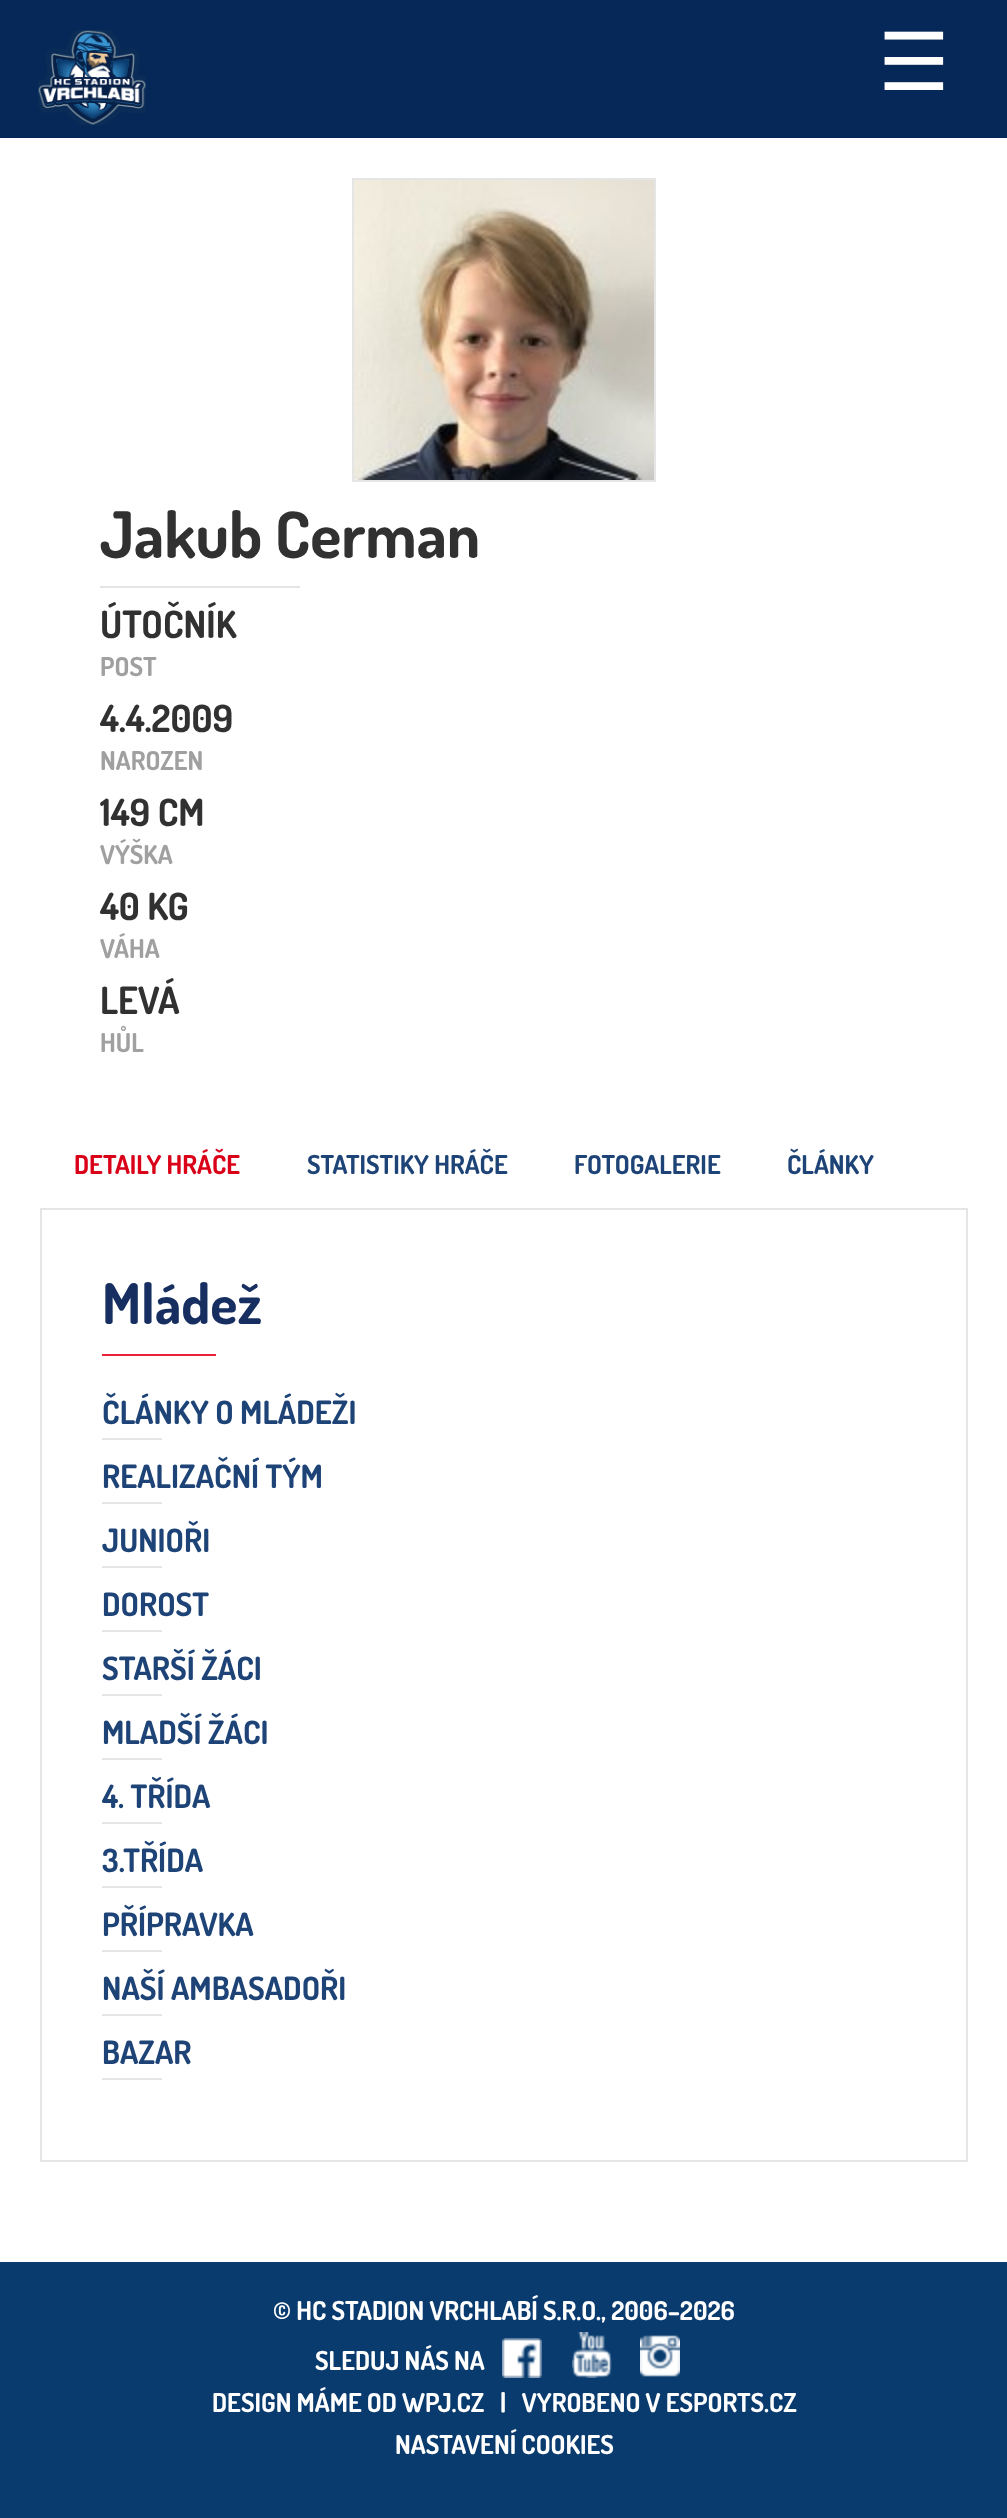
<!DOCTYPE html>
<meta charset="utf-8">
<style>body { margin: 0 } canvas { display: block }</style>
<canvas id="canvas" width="1007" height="2518"></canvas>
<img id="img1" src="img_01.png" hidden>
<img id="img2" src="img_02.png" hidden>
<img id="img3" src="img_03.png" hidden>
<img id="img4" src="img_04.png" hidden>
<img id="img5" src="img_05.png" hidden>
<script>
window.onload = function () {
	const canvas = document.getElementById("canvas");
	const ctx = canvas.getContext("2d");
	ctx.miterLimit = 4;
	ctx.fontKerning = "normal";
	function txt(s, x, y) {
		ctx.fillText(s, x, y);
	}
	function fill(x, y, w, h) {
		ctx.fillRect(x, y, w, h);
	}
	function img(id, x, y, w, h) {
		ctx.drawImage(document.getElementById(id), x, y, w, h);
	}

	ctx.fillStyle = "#093B6E";
	fill(0, 0, 1007, 2518);
	ctx.fillStyle = "#062858";
	fill(0, 0, 1007, 138);
	img("img1", 38, 30, 108, 95);
	ctx.fillStyle = "#FFFFFF";
	fill(0, 138, 1007, 2124);
	ctx.strokeStyle = "#E5E5E5";
	ctx.lineWidth = 2;
	ctx.strokeRect(353, 179, 302, 302);
	img("img2", 354, 180, 300, 300);
	ctx.fillStyle = "#E5E5E5";
	fill(100, 586, 200, 2);
	ctx.strokeRect(41, 1209, 926, 952);
	ctx.fillStyle = "#ED2136";
	fill(102, 1354, 114, 2);
	ctx.fillStyle = "#E5E5E5";
	fill(102, 1438, 60, 2);
	fill(102, 1502, 60, 2);
	fill(102, 1566, 60, 2);
	fill(102, 1630, 60, 2);
	fill(102, 1694, 60, 2);
	fill(102, 1758, 60, 2);
	fill(102, 1822, 60, 2);
	fill(102, 1886, 60, 2);
	fill(102, 1950, 60, 2);
	fill(102, 2014, 60, 2);
	fill(102, 2078, 60, 2);
	img("img3", 502, 2338, 40, 40);
	img("img4", 572, 2332, 40, 46);
	img("img5", 640, 2335, 40, 42);
	ctx.font = "80px DejaVu Sans";
	ctx.fillStyle = "#FFFFFF";
	txt("☰", 878, 90);
	ctx.font = "bold 64px Dosis";
	ctx.fillStyle = "#313131";
	txt("Jakub Cerman", 100, 558);
	ctx.font = "bold 37.5px Dosis";
	txt("ÚTOČNÍK", 100, 638);
	ctx.font = "bold 26px Dosis";
	ctx.fillStyle = "#A0A0A0";
	txt("POST", 100, 676);
	ctx.font = "bold 37.5px Dosis";
	ctx.fillStyle = "#313131";
	txt("4.4.2009", 100, 732);
	ctx.font = "bold 26px Dosis";
	ctx.fillStyle = "#A0A0A0";
	txt("NAROZEN", 100, 770);
	ctx.font = "bold 37.5px Dosis";
	ctx.fillStyle = "#313131";
	txt("149 CM", 100, 826);
	ctx.font = "bold 26px Dosis";
	ctx.fillStyle = "#A0A0A0";
	txt("VÝŠKA", 100, 864);
	ctx.font = "bold 37.5px Dosis";
	ctx.fillStyle = "#313131";
	txt("40 KG", 100, 920);
	ctx.font = "bold 26px Dosis";
	ctx.fillStyle = "#A0A0A0";
	txt("VÁHA", 100, 958);
	ctx.font = "bold 37.5px Dosis";
	ctx.fillStyle = "#313131";
	txt("LEVÁ", 100, 1014);
	ctx.font = "bold 26px Dosis";
	ctx.fillStyle = "#A0A0A0";
	txt("HŮL", 100, 1052);
	ctx.fillStyle = "#D90018";
	txt("DETAILY HRÁČE", 74, 1174);
	ctx.fillStyle = "#1E4477";
	txt("STATISTIKY HRÁČE", 307, 1174);
	txt("FOTOGALERIE", 574, 1174);
	txt("ČLÁNKY", 787, 1174);
	ctx.font = "bold 56px Dosis";
	ctx.fillStyle = "#162E60";
	txt("Mládež", 102, 1324);
	ctx.font = "bold 32px Dosis";
	ctx.fillStyle = "#1E4477";
	txt("ČLÁNKY O MLÁDEŽI", 102, 1424);
	txt("REALIZAČNÍ TÝM", 102, 1488);
	txt("JUNIOŘI", 102, 1552);
	txt("DOROST", 102, 1616);
	txt("STARŠÍ ŽÁCI", 102, 1680);
	txt("MLADŠÍ ŽÁCI", 102, 1744);
	txt("4. TŘÍDA", 102, 1808);
	txt("3.TŘÍDA", 102, 1872);
	txt("PŘÍPRAVKA", 102, 1936);
	txt("NAŠÍ AMBASADOŘI", 102, 2000);
	txt("BAZAR", 102, 2064);
	ctx.font = "bold 26px Dosis";
	ctx.fillStyle = "#FFFFFF";
	txt("© HC STADION VRCHLABÍ S.R.O., 2006–2026", 273, 2320);
	txt("SLEDUJ NÁS NA", 315, 2370);
	txt("DESIGN MÁME OD WPJ.CZ", 212, 2412);
	txt("|   VYROBENO V ESPORTS.CZ", 500, 2412);
	txt("NASTAVENÍ COOKIES", 395, 2454);
};
</script>
